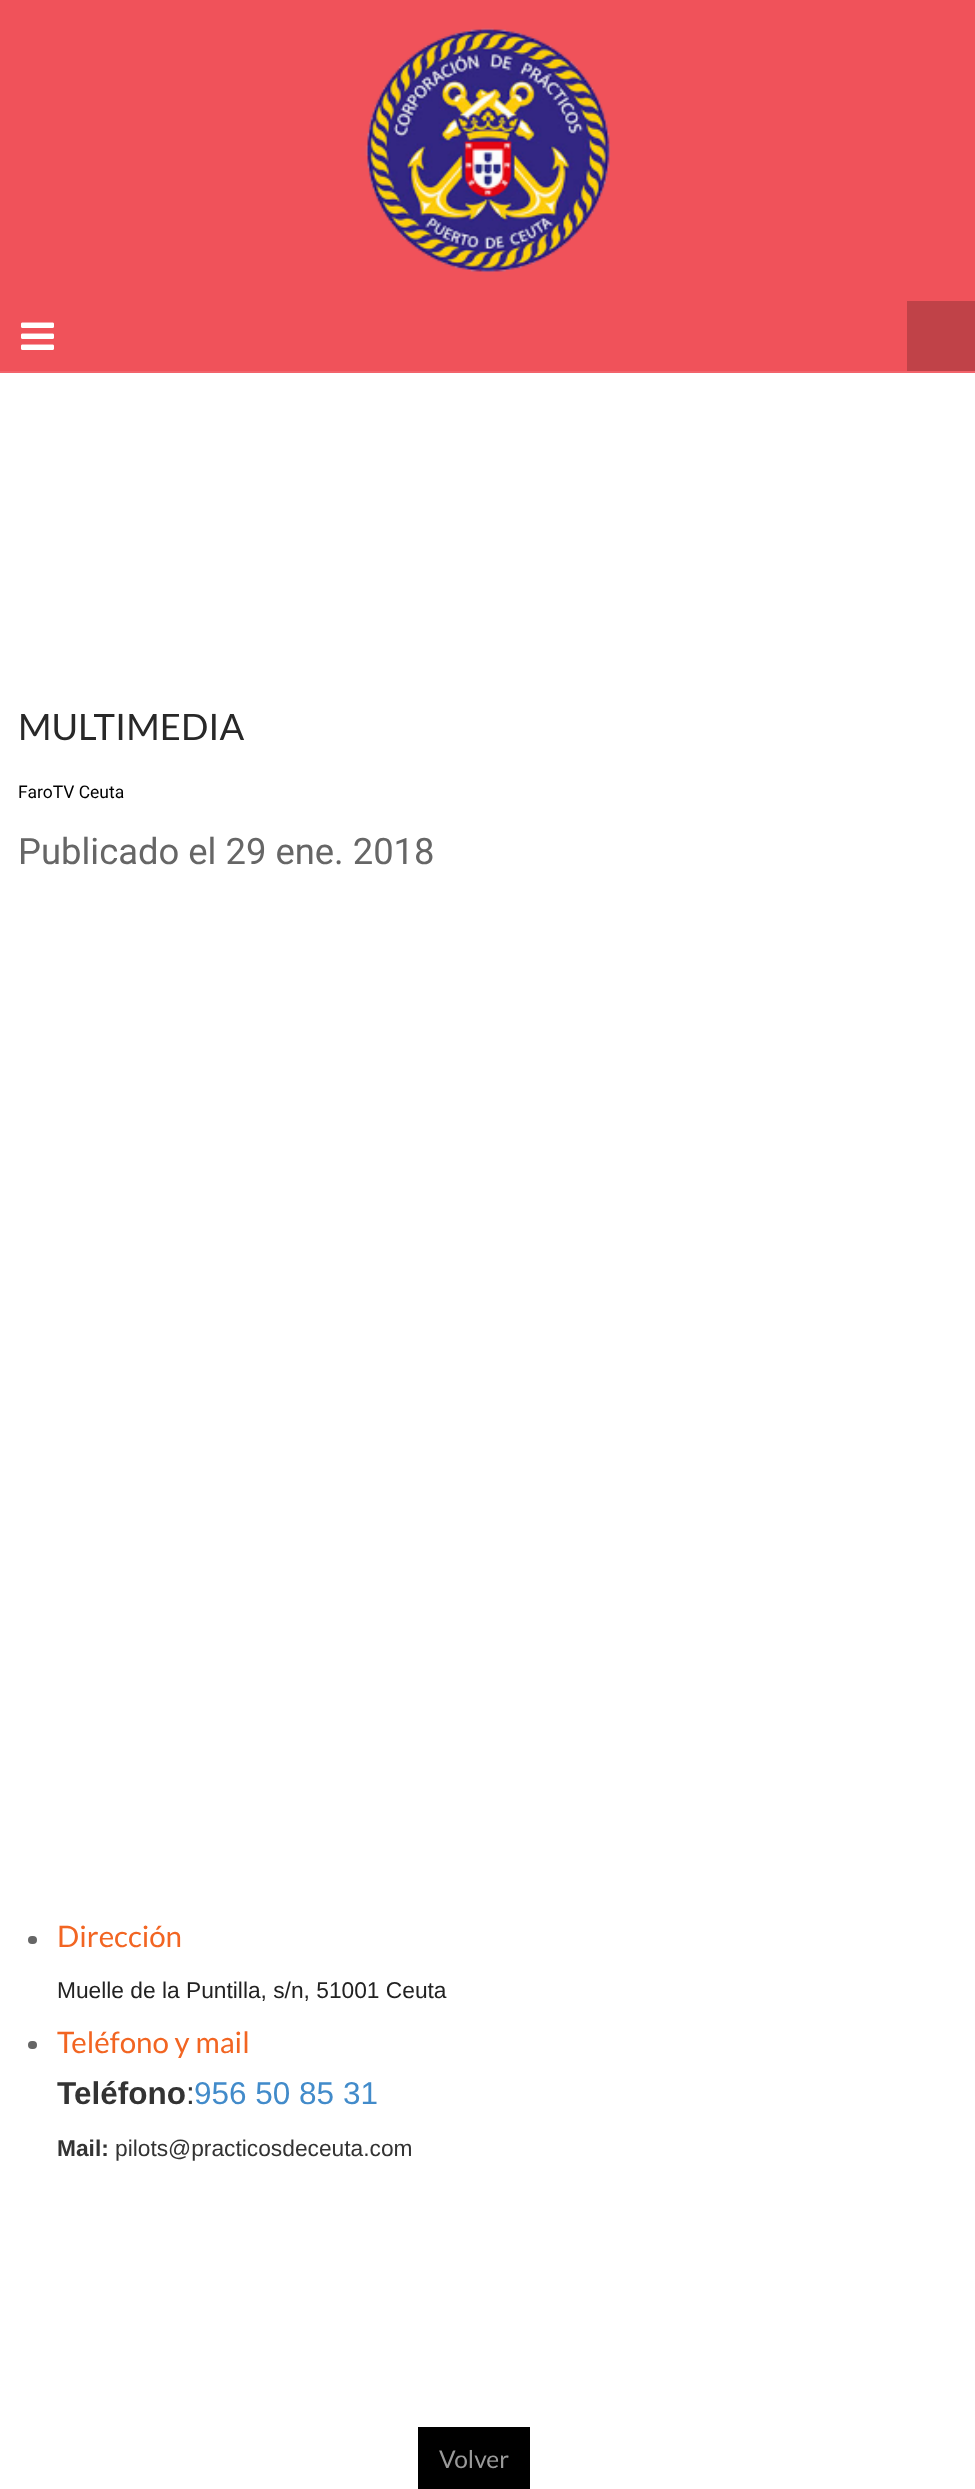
<!DOCTYPE html>
<meta charset="utf-8">
<style>body { margin: 0 } canvas { display: block }</style>
<canvas id="canvas" width="975" height="2489"></canvas>
<img id="img1" src="img_01.png" hidden>
<img id="img2" src="img_02.png" hidden>
<script>
window.onload = function () {
	const canvas = document.getElementById("canvas");
	const ctx = canvas.getContext("2d");
	ctx.miterLimit = 4;
	ctx.fontKerning = "normal";
	function txt(s, x, y) {
		ctx.fillText(s, x, y);
	}
	function fill(x, y, w, h) {
		ctx.fillRect(x, y, w, h);
	}
	function round(x, y, w, h, r) {
		ctx.beginPath();
		ctx.roundRect(x, y, w, h, r);
		ctx.fill();
	}
	function img(id, x, y, w, h) {
		ctx.drawImage(document.getElementById(id), x, y, w, h);
	}

	ctx.fillStyle = "#FFFFFF";
	fill(0, 0, 975, 2489);
	ctx.fillStyle = "#F0525A";
	fill(0, 0, 975, 371);
	ctx.fillStyle = "#F2636B";
	fill(0, 371, 975, 2);
	img("img1", 365, 28, 246, 245);
	img("img2", 21, 322, 33, 28);
	ctx.fillStyle = "#C04248";
	fill(907, 301, 68, 70);
	ctx.fillStyle = "#666666";
	round(28, 1936, 9, 8, 4);
	round(28, 2041, 9, 8, 4);
	ctx.fillStyle = "#000000";
	fill(418, 2427, 112, 62);
	ctx.font = "36.4px Lato";
	ctx.fillStyle = "#282828";
	txt("MULTIMEDIA", 18, 740);
	ctx.font = "17.5px Roboto";
	ctx.fillStyle = "#000000";
	txt("FaroTV Ceuta", 18, 798);
	ctx.font = "36.4px Roboto";
	ctx.fillStyle = "#666666";
	txt("Publicado el 29 ene. 2018", 18, 864);
	ctx.font = "29.5px Lato";
	ctx.fillStyle = "#F26522";
	txt("Dirección", 57, 1947);
	ctx.font = "22.75px Liberation Sans";
	ctx.fillStyle = "#222222";
	txt("Muelle de la Puntilla, s/n, 51001 Ceuta", 57, 1998);
	ctx.font = "29.5px Lato";
	ctx.fillStyle = "#F26522";
	txt("Teléfono y mail", 57, 2053);
	ctx.font = "bold 31.5px Liberation Sans";
	ctx.fillStyle = "#333333";
	txt("Teléfono", 57, 2104);
	ctx.font = "31.5px Liberation Sans";
	txt(":", 186, 2104);
	ctx.fillStyle = "#428BCA";
	txt("956 50 85 31", 194, 2104);
	ctx.font = "bold 22.75px Liberation Sans";
	ctx.fillStyle = "#333333";
	txt("Mail:", 57, 2156);
	ctx.font = "22.75px Liberation Sans";
	txt("pilots@practicosdeceuta.com", 115, 2156);
	ctx.font = "24.5px Lato";
	ctx.fillStyle = "#999999";
	txt("Volver", 439, 2468);
};
</script>
